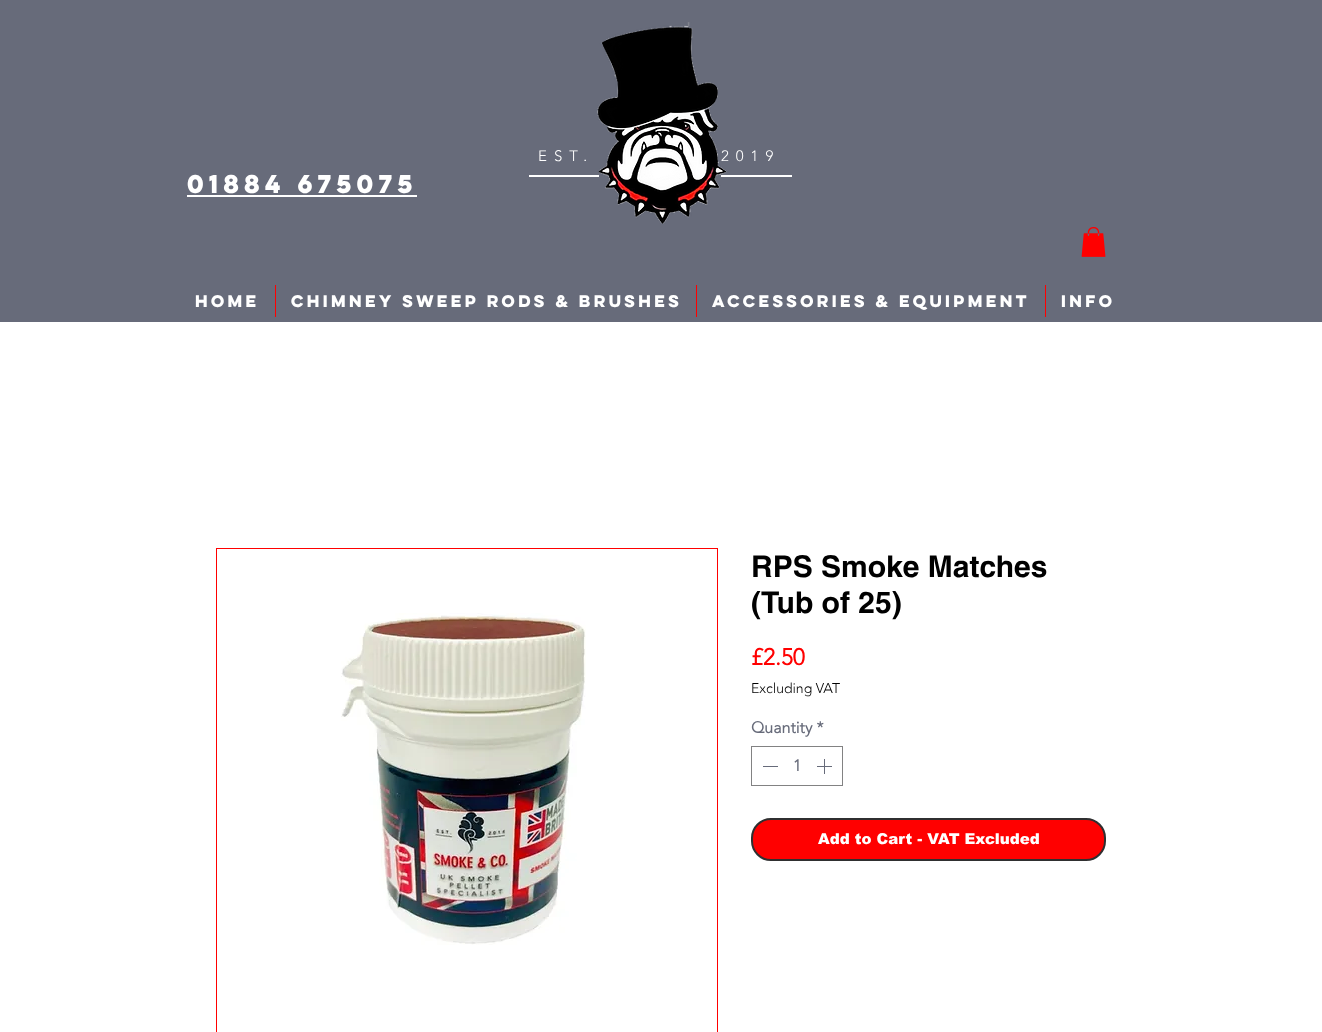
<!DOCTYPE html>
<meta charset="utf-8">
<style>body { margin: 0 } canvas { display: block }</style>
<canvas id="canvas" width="1322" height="1032"></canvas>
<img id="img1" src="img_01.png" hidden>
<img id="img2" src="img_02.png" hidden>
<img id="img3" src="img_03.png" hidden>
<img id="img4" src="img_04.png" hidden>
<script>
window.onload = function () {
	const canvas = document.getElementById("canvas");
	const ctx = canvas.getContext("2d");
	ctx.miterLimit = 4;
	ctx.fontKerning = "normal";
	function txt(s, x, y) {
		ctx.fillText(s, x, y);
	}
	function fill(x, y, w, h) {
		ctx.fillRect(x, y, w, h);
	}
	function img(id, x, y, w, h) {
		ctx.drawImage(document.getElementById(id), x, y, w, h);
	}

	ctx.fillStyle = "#FFFFFF";
	fill(0, 0, 1322, 1032);
	ctx.fillStyle = "#676B7A";
	fill(0, 0, 1322, 322);
	ctx.fillStyle = "#FFFFFF";
	fill(529, 175, 70, 2);
	img("img1", 597, 22, 130, 202);
	fill(187, 195, 230, 2);
	fill(721, 175, 71, 2);
	img("img2", 1081, 227, 25, 30);
	ctx.fillStyle = "#FF0000";
	fill(275, 285, 1, 32);
	fill(696, 285, 1, 32);
	fill(1045, 285, 1, 32);
	ctx.strokeStyle = "#FF0000";
	ctx.strokeRect(216.5, 548.5, 501, 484);
	img("img3", 341, 613, 245, 332);
	ctx.strokeStyle = "#828283";
	ctx.strokeRect(751.5, 746.5, 91, 39);
	ctx.fillStyle = "#676B7A";
	fill(763, 766, 15, 1);
	img("img4", 817, 759, 15, 15);
	ctx.fillStyle = "#FF0000";
	ctx.beginPath();
	ctx.roundRect(752, 819, 353, 41, 19);
	ctx.fill();
	ctx.strokeStyle = "#2F2F30";
	ctx.lineWidth = 2;
	ctx.stroke();
	ctx.letterSpacing = "7px";
	ctx.font = "300 15px 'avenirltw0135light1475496'";
	ctx.fillStyle = "#FFFFFF";
	txt("EST.", 538, 161);
	txt("2019", 721, 161);
	ctx.letterSpacing = "0px";
	ctx.font = "bold 23px 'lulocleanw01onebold'";
	txt("01884 675075", 187, 193);
	ctx.font = "bold 15px 'lulocleanw01onebold'";
	txt("Home", 195, 307);
	txt("Chimney Sweep Rods & Brushes", 291, 307);
	txt("Accessories & Equipment", 712, 307);
	txt("Info", 1061, 307);
	ctx.font = "bold 30px helvetica";
	ctx.fillStyle = "#000000";
	txt("RPS Smoke Matches", 751, 577);
	txt("(Tub of 25)", 751, 613);
	ctx.font = "bold 23px 'avenirltw0135light1475496'";
	ctx.fillStyle = "#FF0000";
	txt("£2.50", 751, 665);
	ctx.font = "300 14px 'avenirltw0135light1475496'";
	ctx.fillStyle = "#000000";
	txt("Excluding VAT", 751, 693);
	ctx.font = "bold 16px 'avenirltw0135light1475496'";
	ctx.fillStyle = "#676B7A";
	txt("Quantity *", 751, 733);
	txt("1", 793, 771);
	ctx.font = "900 15px arial";
	ctx.fillStyle = "#FFFFFF";
	txt("Add to Cart - VAT Excluded", 818, 844);
};
</script>
